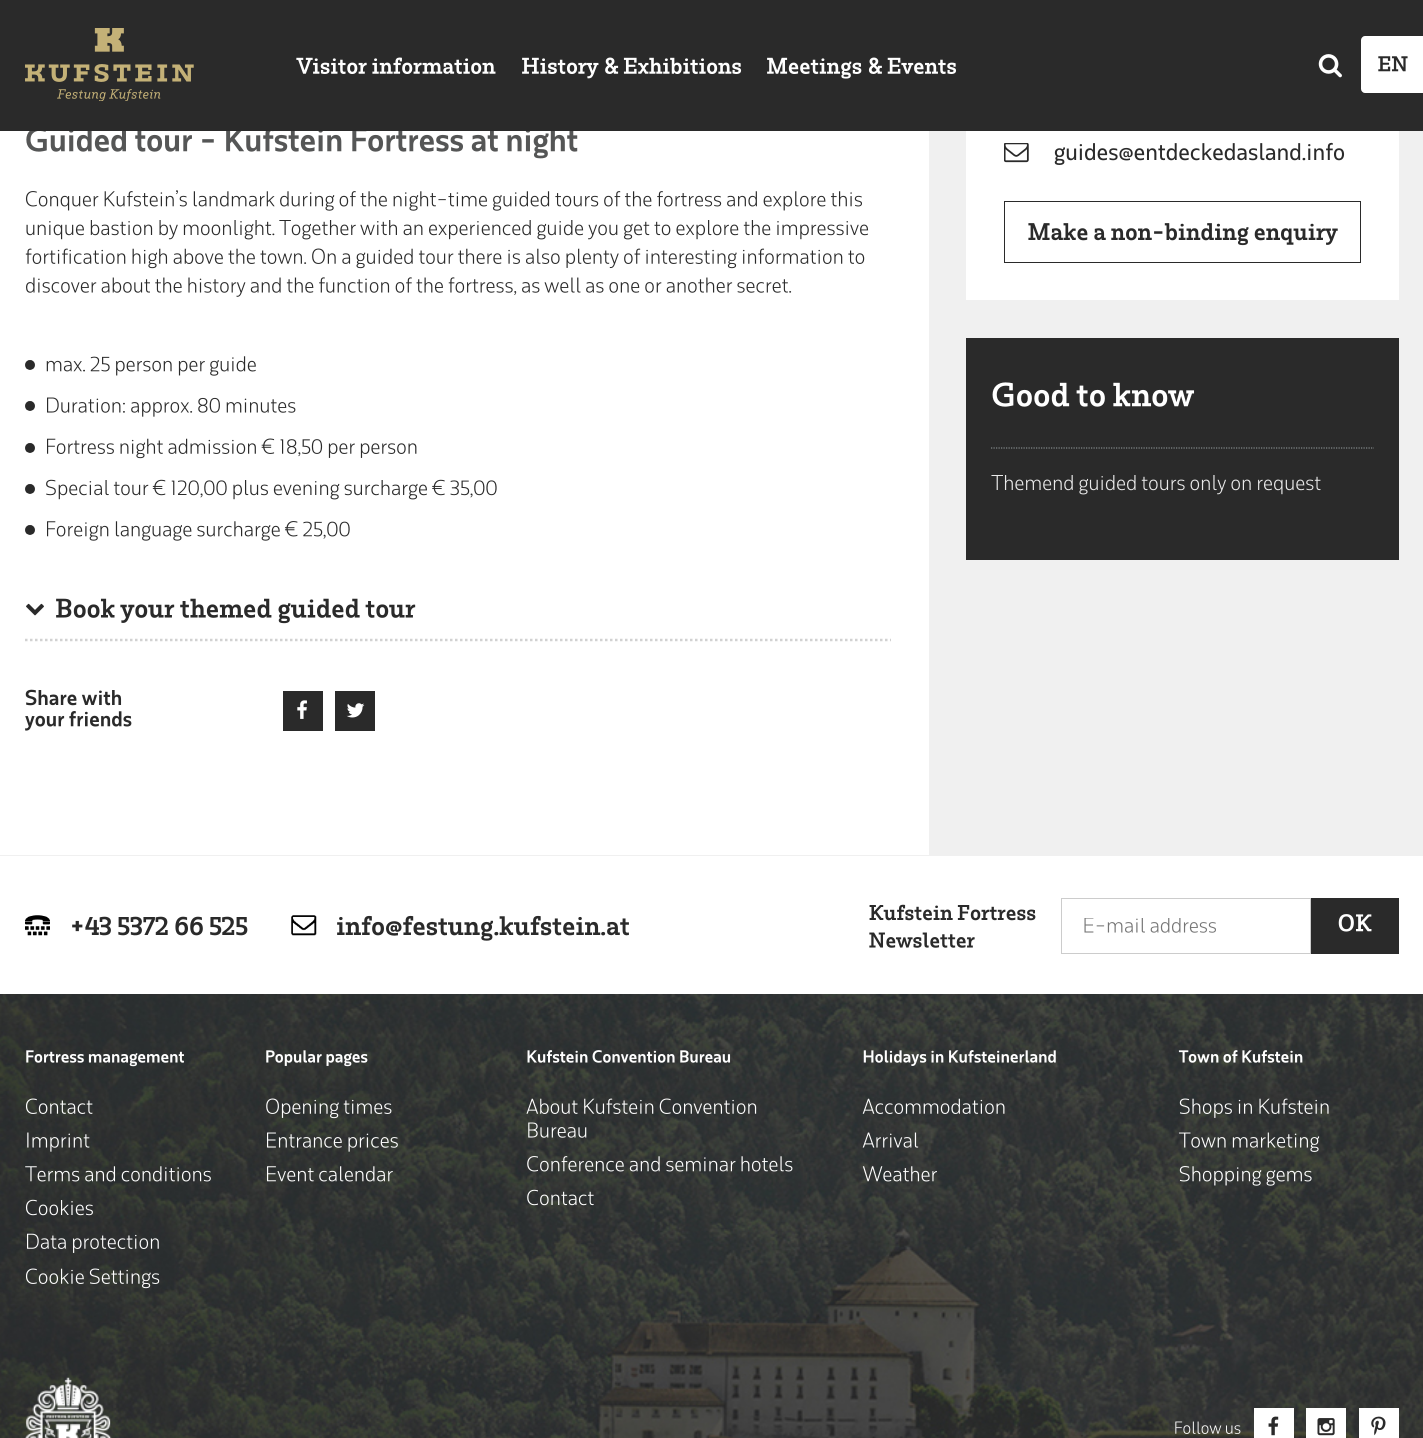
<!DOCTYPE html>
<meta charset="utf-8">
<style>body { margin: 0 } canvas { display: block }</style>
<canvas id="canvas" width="1423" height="1438"></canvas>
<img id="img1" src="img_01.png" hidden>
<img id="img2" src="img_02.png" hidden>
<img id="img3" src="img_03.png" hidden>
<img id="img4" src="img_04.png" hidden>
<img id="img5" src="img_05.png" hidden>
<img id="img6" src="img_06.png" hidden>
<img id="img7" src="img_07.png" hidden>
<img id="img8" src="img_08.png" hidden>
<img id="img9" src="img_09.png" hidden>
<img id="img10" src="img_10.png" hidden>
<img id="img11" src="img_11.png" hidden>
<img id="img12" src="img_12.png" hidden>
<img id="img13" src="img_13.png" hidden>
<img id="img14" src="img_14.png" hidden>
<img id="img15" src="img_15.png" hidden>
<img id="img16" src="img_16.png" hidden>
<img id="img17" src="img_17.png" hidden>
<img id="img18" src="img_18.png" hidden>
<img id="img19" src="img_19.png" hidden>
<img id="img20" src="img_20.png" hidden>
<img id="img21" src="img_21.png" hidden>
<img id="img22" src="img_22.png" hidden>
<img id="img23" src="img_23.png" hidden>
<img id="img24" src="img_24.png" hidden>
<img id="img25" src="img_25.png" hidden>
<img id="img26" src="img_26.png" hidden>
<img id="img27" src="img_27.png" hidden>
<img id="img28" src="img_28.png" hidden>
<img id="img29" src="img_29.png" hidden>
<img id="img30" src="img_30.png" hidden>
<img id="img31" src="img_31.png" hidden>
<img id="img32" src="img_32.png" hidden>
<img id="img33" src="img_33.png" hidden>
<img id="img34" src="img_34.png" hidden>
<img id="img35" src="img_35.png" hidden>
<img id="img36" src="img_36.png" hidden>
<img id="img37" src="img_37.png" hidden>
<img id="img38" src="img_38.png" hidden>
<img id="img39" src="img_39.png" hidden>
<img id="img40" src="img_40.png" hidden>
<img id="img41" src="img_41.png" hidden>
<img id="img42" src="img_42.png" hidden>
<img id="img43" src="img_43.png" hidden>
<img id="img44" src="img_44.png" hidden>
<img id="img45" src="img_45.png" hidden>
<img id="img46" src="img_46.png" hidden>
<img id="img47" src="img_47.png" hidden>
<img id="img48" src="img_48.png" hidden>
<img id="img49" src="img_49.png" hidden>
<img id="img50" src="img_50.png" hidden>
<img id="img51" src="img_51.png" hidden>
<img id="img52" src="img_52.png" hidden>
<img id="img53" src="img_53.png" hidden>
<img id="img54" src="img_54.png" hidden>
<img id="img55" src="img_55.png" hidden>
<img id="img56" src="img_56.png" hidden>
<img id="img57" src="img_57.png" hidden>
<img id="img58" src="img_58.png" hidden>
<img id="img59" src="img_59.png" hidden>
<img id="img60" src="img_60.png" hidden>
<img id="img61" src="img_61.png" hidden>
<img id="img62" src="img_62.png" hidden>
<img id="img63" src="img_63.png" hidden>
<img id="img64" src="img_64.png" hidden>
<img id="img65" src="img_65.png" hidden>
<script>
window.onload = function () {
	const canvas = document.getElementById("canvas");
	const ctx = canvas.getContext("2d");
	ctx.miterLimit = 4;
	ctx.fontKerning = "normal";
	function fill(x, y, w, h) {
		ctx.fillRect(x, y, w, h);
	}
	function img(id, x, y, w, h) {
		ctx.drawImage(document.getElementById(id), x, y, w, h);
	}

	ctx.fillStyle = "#FFFFFF";
	fill(0, 0, 1423, 1438);
	ctx.fillStyle = "#2A2A2A";
	fill(0, 0, 1423, 131);
	img("img1", 25, 28, 169, 73);
	img("img2", 296, 57, 200, 17);
	img("img3", 522, 57, 220, 22);
	img("img4", 767, 57, 189, 22);
	img("img5", 1318, 54, 24, 24);
	ctx.fillStyle = "#FFFFFF";
	ctx.beginPath();
	ctx.moveTo(1365, 36);
	ctx.lineTo(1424, 36);
	ctx.lineTo(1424, 93);
	ctx.lineTo(1365, 93);
	ctx.bezierCurveTo(1363, 93, 1361, 91, 1361, 89);
	ctx.lineTo(1361, 40);
	ctx.bezierCurveTo(1361, 38, 1363, 36, 1365, 36);
	ctx.closePath();
	ctx.fill();
	img("img6", 1378, 56, 30, 16);
	img("img7", 26, 131, 552, 28);
	img("img8", 25, 190, 837, 21);
	img("img9", 26, 220, 843, 20);
	img("img10", 25, 248, 840, 21);
	img("img11", 26, 277, 766, 20);
	ctx.fillStyle = "#2A2A2A";
	ctx.beginPath();
	ctx.arc(30, 365, 5, 0, Math.PI * 2);
	ctx.fill();
	img("img12", 46, 356, 210, 20);
	ctx.beginPath();
	ctx.arc(30, 406, 5, 0, Math.PI * 2);
	ctx.fill();
	img("img13", 47, 397, 249, 20);
	ctx.beginPath();
	ctx.arc(30, 448, 5, 0, Math.PI * 2);
	ctx.fill();
	img("img14", 47, 438, 370, 21);
	ctx.beginPath();
	ctx.arc(30, 489, 5, 0, Math.PI * 2);
	ctx.fill();
	img("img15", 46, 479, 451, 21);
	ctx.beginPath();
	ctx.arc(30, 530, 5, 0, Math.PI * 2);
	ctx.fill();
	img("img16", 47, 521, 303, 20);
	ctx.beginPath();
	ctx.moveTo(25, 640);
	ctx.lineTo(891, 640);
	ctx.strokeStyle = "#D1D1D1";
	ctx.lineWidth = 2.5;
	ctx.setLineDash([2.5, 2.5]);
	ctx.stroke();
	img("img17", 26, 603, 18, 13);
	img("img18", 56, 598, 360, 26);
	img("img19", 25, 689, 97, 17);
	img("img20", 25, 711, 107, 20);
	fill(283, 691, 40, 40);
	img("img21", 297, 700, 10, 19);
	fill(335, 691, 40, 40);
	img("img22", 346, 703, 19, 15);
	ctx.fillStyle = "#F0F0F0";
	fill(929, 131, 494, 724);
	ctx.fillStyle = "#FFFFFF";
	fill(966, 131, 433, 169);
	img("img23", 1004, 143, 25, 20);
	img("img24", 1054, 142, 291, 23);
	ctx.strokeStyle = "#2A2A2A";
	ctx.lineWidth = 1;
	ctx.setLineDash([]);
	ctx.strokeRect(1004.5, 201.5, 356, 61);
	img("img25", 1028, 223, 310, 23);
	ctx.fillStyle = "#2A2A2A";
	fill(966, 338, 433, 222);
	img("img26", 992, 382, 203, 25);
	ctx.beginPath();
	ctx.moveTo(991, 448);
	ctx.lineTo(1374, 448);
	ctx.strokeStyle = "#969EA0";
	ctx.lineWidth = 1.2;
	ctx.setLineDash([1.25, 1.25]);
	ctx.stroke();
	img("img27", 991, 475, 330, 20);
	ctx.fillStyle = "#F0F0F0";
	fill(0, 855, 1423, 1);
	img("img28", 25, 915, 25, 21);
	img("img29", 72, 916, 176, 20);
	img("img30", 291, 915, 26, 21);
	img("img31", 337, 915, 292, 26);
	img("img32", 869, 904, 167, 17);
	img("img33", 869, 932, 106, 16);
	ctx.strokeStyle = "#CCCCCC";
	ctx.lineWidth = 1;
	ctx.setLineDash([]);
	ctx.strokeRect(1061.5, 898.5, 249, 55);
	img("img34", 1084, 918, 132, 15);
	ctx.fillStyle = "#2A2A2A";
	fill(1311, 898, 88, 56);
	img("img35", 1338, 914, 34, 18);
	img("img36", 0, 994, 1423, 444);
	img("img37", 26, 1050, 158, 17);
	img("img38", 25, 1098, 68, 16);
	img("img39", 27, 1132, 63, 20);
	img("img40", 25, 1166, 186, 16);
	img("img41", 25, 1199, 68, 17);
	img("img42", 27, 1233, 132, 20);
	img("img43", 25, 1268, 135, 21);
	img("img44", 266, 1050, 102, 17);
	img("img45", 266, 1098, 126, 21);
	img("img46", 267, 1132, 131, 20);
	img("img47", 267, 1166, 126, 16);
	img("img48", 527, 1050, 204, 13);
	img("img49", 526, 1098, 231, 16);
	img("img50", 528, 1122, 59, 16);
	img("img51", 527, 1156, 266, 16);
	img("img52", 527, 1189, 67, 17);
	img("img53", 863, 1050, 193, 16);
	img("img54", 862, 1098, 143, 16);
	img("img55", 862, 1132, 57, 16);
	img("img56", 862, 1166, 75, 16);
	img("img57", 1178, 1050, 125, 13);
	img("img58", 1179, 1098, 150, 20);
	img("img59", 1178, 1132, 142, 20);
	img("img60", 1179, 1166, 133, 20);
	img("img61", 25, 1377, 87, 61);
	img("img62", 1175, 1421, 66, 13);
	ctx.fillStyle = "#FFFFFF";
	fill(1254, 1408, 40, 30);
	img("img63", 1268, 1416, 11, 20);
	fill(1306, 1408, 40, 30);
	img("img64", 1317, 1418, 18, 18);
	fill(1359, 1408, 40, 30);
	img("img65", 1371, 1416, 15, 20);
};
</script>
